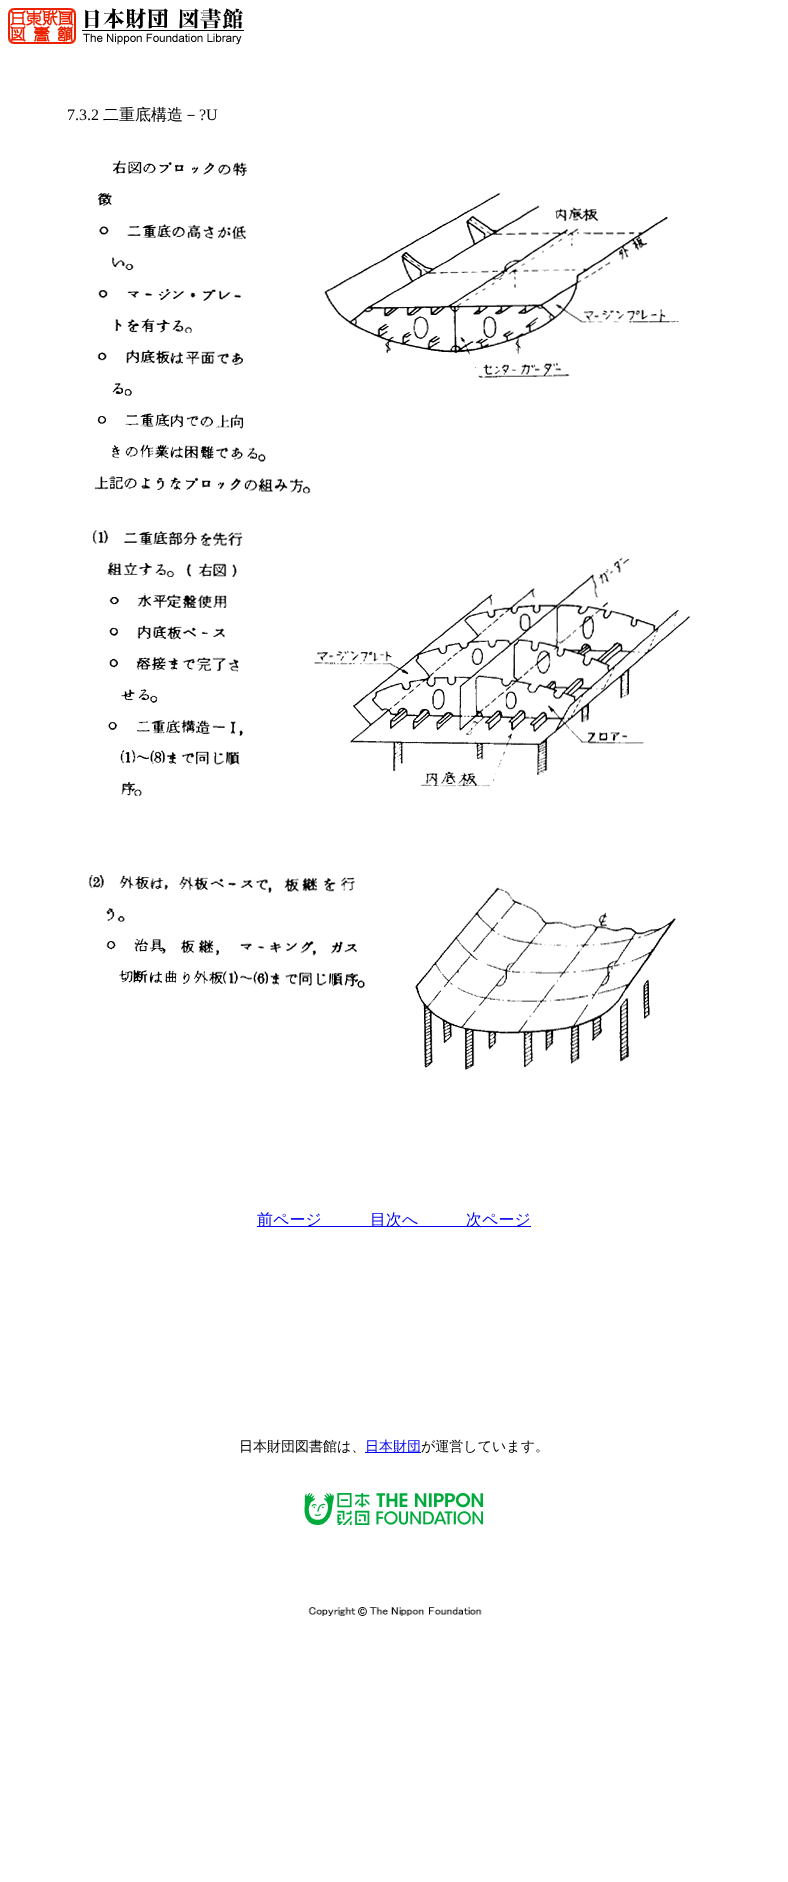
<!DOCTYPE html>
<meta charset="utf-8">
<style>body { margin: 0 } canvas { display: block }</style>
<canvas id="canvas" width="788" height="1882"></canvas>
<img id="img1" src="img_01.png" hidden>
<img id="img2" src="img_02.png" hidden>
<img id="img3" src="img_03.png" hidden>
<img id="img4" src="img_04.png" hidden>
<script>
window.onload = function () {
	const canvas = document.getElementById("canvas");
	const ctx = canvas.getContext("2d");
	ctx.miterLimit = 4;
	ctx.fontKerning = "normal";
	function txt(s, x, y) {
		ctx.fillText(s, x, y);
	}
	function fill(x, y, w, h) {
		ctx.fillRect(x, y, w, h);
	}
	function img(id, x, y, w, h) {
		ctx.drawImage(document.getElementById(id), x, y, w, h);
	}

	ctx.fillStyle = "#FFFFFF";
	fill(0, 0, 788, 1882);
	img("img1", 8, 8, 236, 37);
	img("img2", 88, 160, 602, 910);
	ctx.fillStyle = "#0000EE";
	fill(257, 1226, 274, 1);
	fill(365, 1452, 56, 1);
	img("img3", 304, 1493, 179, 32);
	img("img4", 308, 1607, 174, 9);
	ctx.font = "16px Liberation Serif";
	ctx.fillStyle = "#000000";
	txt("7.3.2", 67, 120);
	ctx.font = "500 16px WenQuanYi Zen Hei";
	txt("二重底構造－", 103, 120);
	ctx.font = "16px Liberation Serif";
	txt("?U", 199, 120);
	ctx.font = "500 16px WenQuanYi Zen Hei";
	ctx.fillStyle = "#0000EE";
	txt("前ページ", 257, 1225);
	txt("目次へ", 370, 1225);
	txt("次ページ", 466, 1225);
	ctx.font = "500 14px WenQuanYi Zen Hei";
	ctx.fillStyle = "#000000";
	txt("日本財団図書館は、", 239, 1451);
	ctx.fillStyle = "#0000EE";
	txt("日本財団", 365, 1451);
	ctx.fillStyle = "#000000";
	txt("が運営しています。", 421, 1451);
};
</script>
